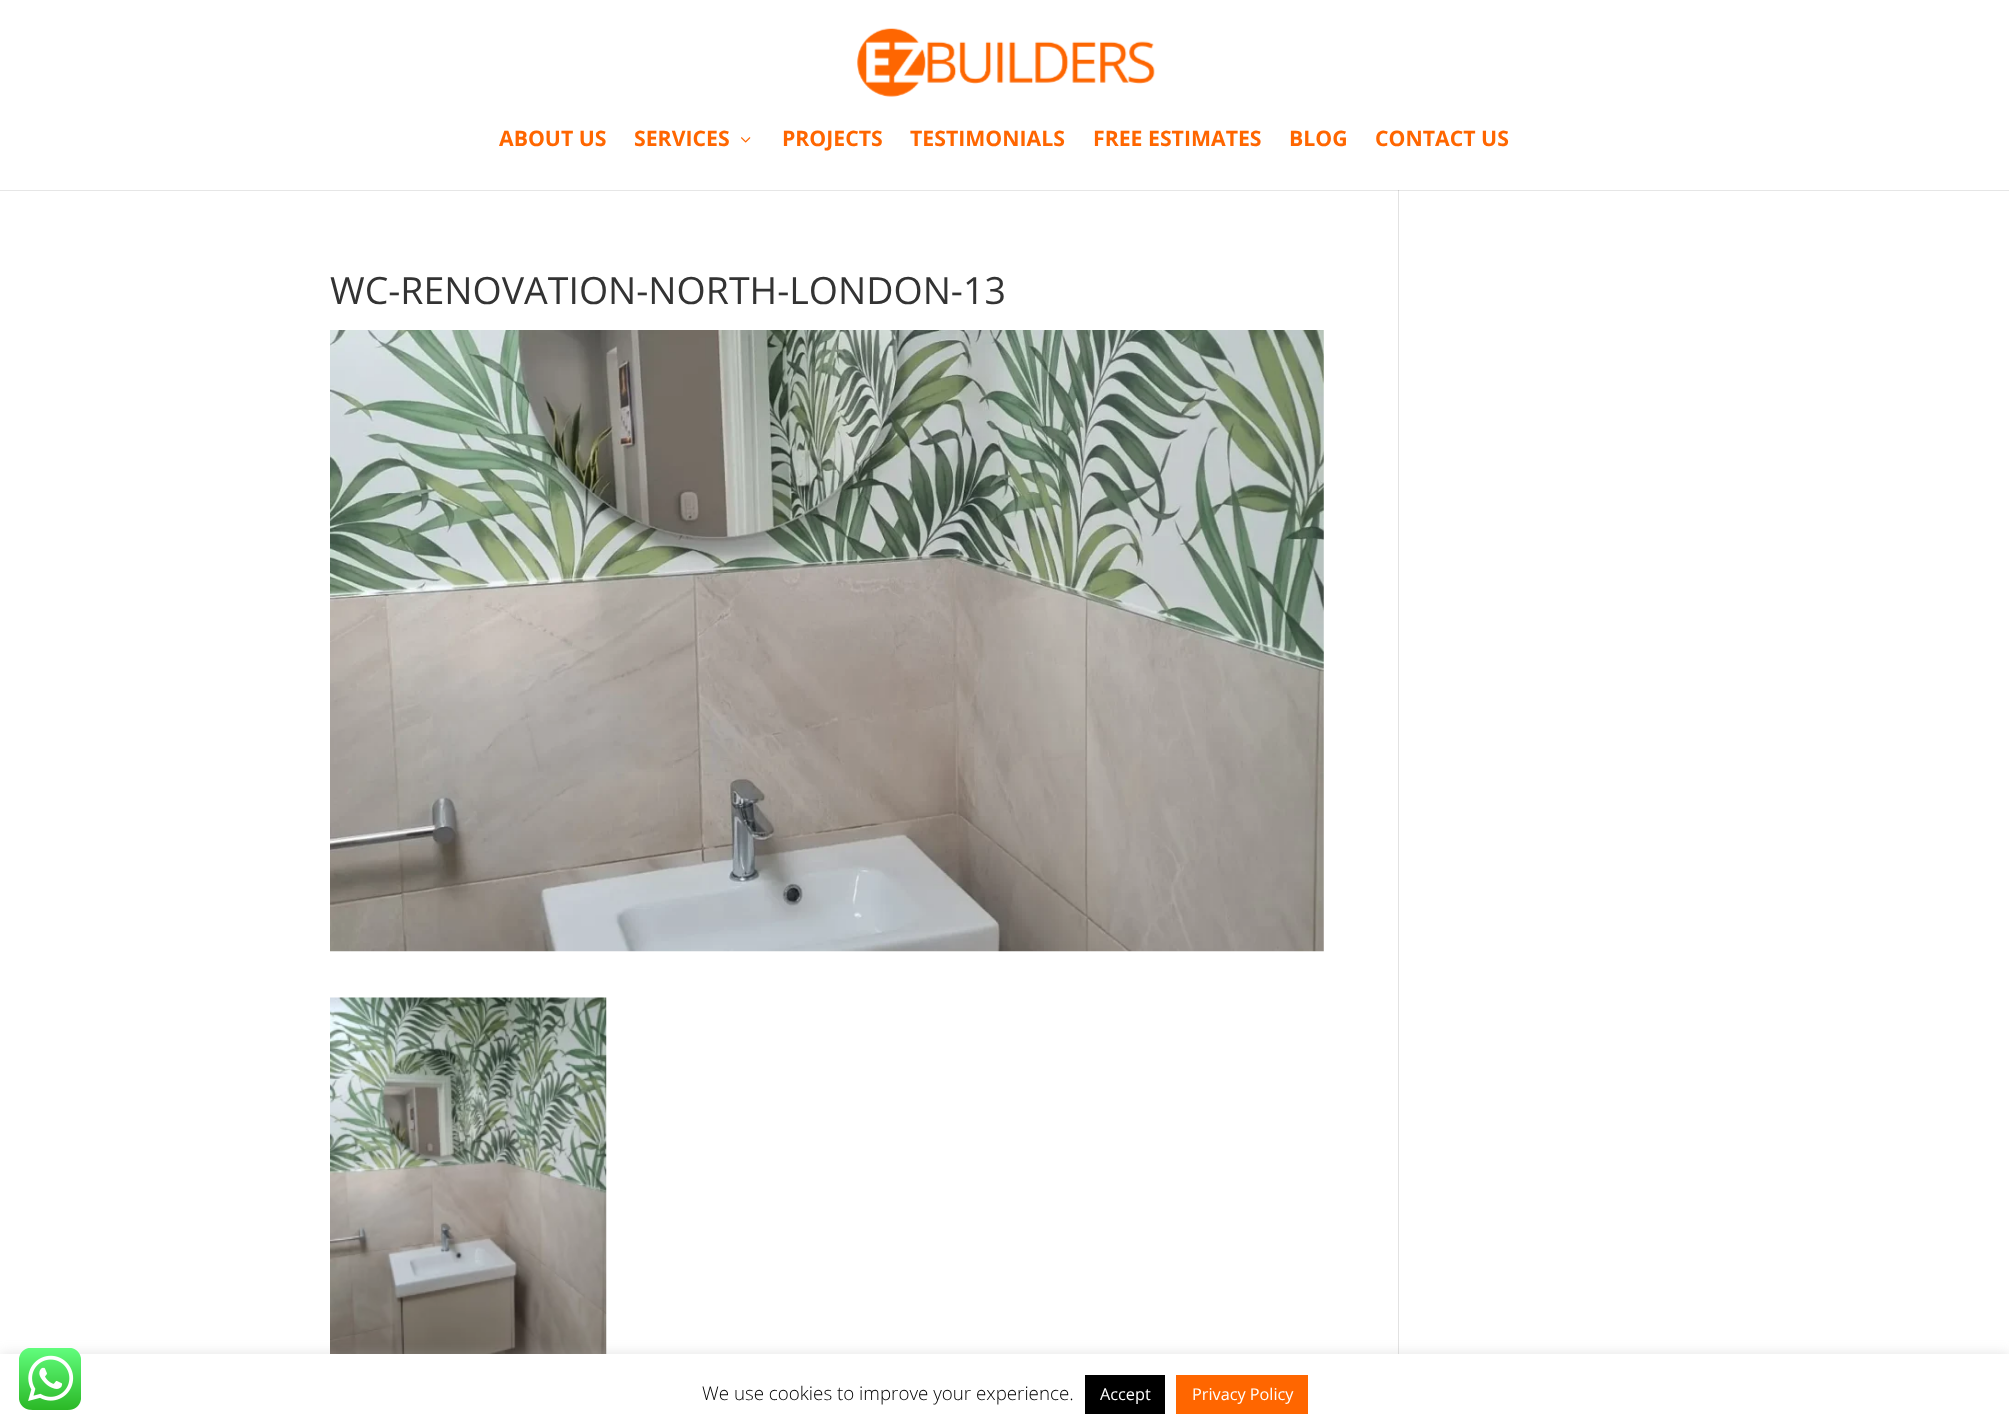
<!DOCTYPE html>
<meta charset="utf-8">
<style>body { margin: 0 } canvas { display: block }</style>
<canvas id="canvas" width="2009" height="1428"></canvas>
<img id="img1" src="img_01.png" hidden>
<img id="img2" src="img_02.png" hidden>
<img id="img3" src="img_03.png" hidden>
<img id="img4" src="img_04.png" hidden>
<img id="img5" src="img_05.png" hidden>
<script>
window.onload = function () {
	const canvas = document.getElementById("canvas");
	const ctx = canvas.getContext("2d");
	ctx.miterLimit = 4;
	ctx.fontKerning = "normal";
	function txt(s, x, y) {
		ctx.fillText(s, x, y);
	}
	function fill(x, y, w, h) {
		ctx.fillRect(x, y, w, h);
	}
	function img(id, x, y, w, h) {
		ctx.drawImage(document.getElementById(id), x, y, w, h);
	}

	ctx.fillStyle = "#FFFFFF";
	fill(0, 0, 2009, 1428);
	ctx.fillStyle = "#E6E6E6";
	fill(0, 190, 2009, 1);
	ctx.fillStyle = "#E2E2E2";
	fill(1398, 189, 1, 1165);
	ctx.fillStyle = "#FFFFFF";
	fill(1398, 189, 1, 1);
	img("img1", 857, 28, 298, 69);
	img("img2", 741, 137, 10, 6);
	img("img3", 330, 330, 994, 622);
	img("img4", 330, 997, 277, 357);
	ctx.fillStyle = "#CBCBCB";
	fill(1398, 190, 1, 1);
	ctx.fillStyle = "rgba(172, 171, 171, 0.3)";
	ctx.filter = "blur(6px)";
	ctx.beginPath();
	ctx.rect(0, 1353, 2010, 75);
	ctx.fill();
	ctx.filter = "none";
	ctx.fillStyle = "#FFFFFF";
	fill(0, 1354, 2009, 74);
	img("img5", 19, 1348, 62, 62);
	ctx.fillStyle = "#000000";
	fill(1085, 1375, 80, 39);
	ctx.fillStyle = "#FF6600";
	fill(1176, 1375, 132, 39);
	ctx.font = "bold 21.25px Open Sans";
	txt("ABOUT US", 499, 146);
	txt("SERVICES", 634, 146);
	txt("PROJECTS", 782, 146);
	txt("TESTIMONIALS", 910, 146);
	txt("FREE ESTIMATES", 1093, 146);
	txt("BLOG", 1289, 146);
	txt("CONTACT US", 1375, 146);
	ctx.font = "37.5px Open Sans";
	ctx.fillStyle = "#333333";
	txt("WC-RENOVATION-NORTH-LONDON-13", 330, 304);
	ctx.font = "300 18.75px Open Sans";
	ctx.fillStyle = "#000000";
	txt("We use cookies to improve your experience.", 702, 1400);
	ctx.font = "16.25px Open Sans";
	ctx.fillStyle = "#FFFFFF";
	txt("Accept", 1100, 1400);
	txt("Privacy Policy", 1192, 1400);
};
</script>
